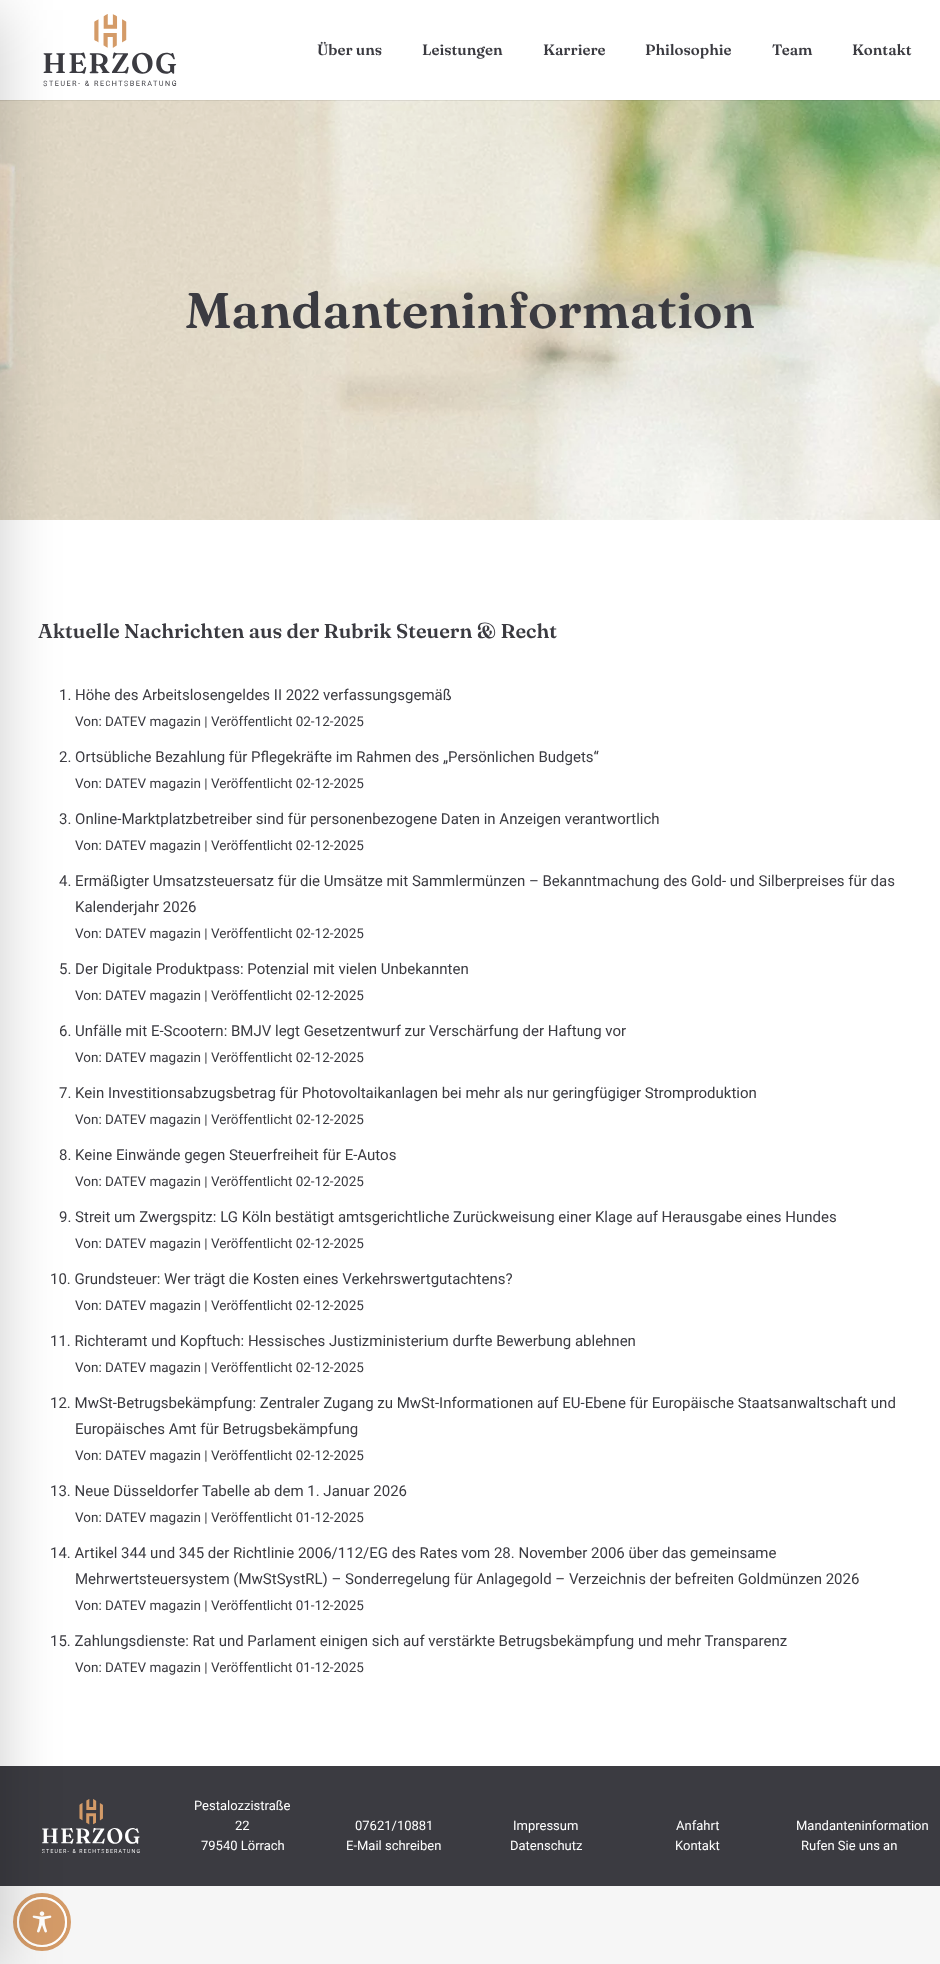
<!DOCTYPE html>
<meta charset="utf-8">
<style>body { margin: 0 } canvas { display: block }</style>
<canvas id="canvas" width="940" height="1964"></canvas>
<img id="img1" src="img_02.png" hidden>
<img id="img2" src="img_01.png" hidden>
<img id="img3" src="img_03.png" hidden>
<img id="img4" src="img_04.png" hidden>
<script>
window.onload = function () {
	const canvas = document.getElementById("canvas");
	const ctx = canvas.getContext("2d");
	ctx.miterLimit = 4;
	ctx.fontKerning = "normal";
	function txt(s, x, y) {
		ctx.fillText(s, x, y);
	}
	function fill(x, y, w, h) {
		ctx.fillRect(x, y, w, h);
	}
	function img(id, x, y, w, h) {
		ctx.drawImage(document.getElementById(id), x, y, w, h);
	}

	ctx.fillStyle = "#F6F6F6";
	fill(0, 0, 940, 1964);
	ctx.fillStyle = "#FFFFFF";
	fill(0, 520, 940, 1246);
	img("img1", 0, 100, 940, 420);
	ctx.fillStyle = "rgba(0, 0, 0, 0.08)";
	fill(0, 100, 940, 1);
	ctx.fillStyle = "#FFFFFF";
	fill(0, 0, 940, 100);
	img("img2", 43, 14, 134, 73);
	ctx.fillStyle = "#3B3B41";
	fill(0, 1766, 940, 120);
	img("img3", 42, 1799, 98, 54);
	ctx.beginPath();
	ctx.arc(42, 1922, 27, 0, Math.PI * 2);
	ctx.strokeStyle = "#D49B68";
	ctx.lineWidth = 4;
	ctx.stroke();
	ctx.fillStyle = "#D49B68";
	ctx.beginPath();
	ctx.arc(42, 1922, 24, 0, Math.PI * 2);
	ctx.fill();
	ctx.strokeStyle = "#FFFFFF";
	ctx.lineWidth = 2;
	ctx.stroke();
	img("img4", 32, 1911, 20, 22);
	ctx.fillStyle = "rgba(0, 0, 0, 0.2)";
	ctx.filter = "blur(30px)";
	ctx.beginPath();
	ctx.rect(-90, 10, 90, 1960);
	ctx.fill();
	ctx.filter = "none";
	ctx.font = "600 15px Fraunces";
	ctx.fillStyle = "#3B3B41";
	txt("Über uns", 317, 55);
	txt("Leistungen", 422, 55);
	txt("Karriere", 543, 55);
	txt("Philosophie", 645, 55);
	txt("Team", 772, 55);
	txt("Kontakt", 852, 55);
	ctx.font = "600 50px Fraunces";
	txt("Mandanteninformation", 185, 328);
	ctx.font = "600 20px Fraunces";
	txt("Aktuelle Nachrichten aus der Rubrik Steuern & Recht", 38, 638);
	ctx.font = "15px Roboto";
	txt("1. Höhe des Arbeitslosengeldes II 2022 verfassungsgemäß", 59, 700);
	ctx.font = "13.5px Roboto";
	txt("Von: DATEV magazin | Veröffentlicht 02-12-2025", 75, 726);
	ctx.font = "15px Roboto";
	txt("2. Ortsübliche Bezahlung für Pflegekräfte im Rahmen des „Persönlichen Budgets“", 59, 762);
	ctx.font = "13.5px Roboto";
	txt("Von: DATEV magazin | Veröffentlicht 02-12-2025", 75, 788);
	ctx.font = "15px Roboto";
	txt("3. Online-Marktplatzbetreiber sind für personenbezogene Daten in Anzeigen verantwortlich", 59, 824);
	ctx.font = "13.5px Roboto";
	txt("Von: DATEV magazin | Veröffentlicht 02-12-2025", 75, 850);
	ctx.font = "15px Roboto";
	txt("4. Ermäßigter Umsatzsteuersatz für die Umsätze mit Sammlermünzen – Bekanntmachung des Gold- und Silberpreises für das", 59, 886);
	txt("Kalenderjahr 2026", 75, 912);
	ctx.font = "13.5px Roboto";
	txt("Von: DATEV magazin | Veröffentlicht 02-12-2025", 75, 938);
	ctx.font = "15px Roboto";
	txt("5. Der Digitale Produktpass: Potenzial mit vielen Unbekannten", 59, 974);
	ctx.font = "13.5px Roboto";
	txt("Von: DATEV magazin | Veröffentlicht 02-12-2025", 75, 1000);
	ctx.font = "15px Roboto";
	txt("6. Unfälle mit E-Scootern: BMJV legt Gesetzentwurf zur Verschärfung der Haftung vor", 59, 1036);
	ctx.font = "13.5px Roboto";
	txt("Von: DATEV magazin | Veröffentlicht 02-12-2025", 75, 1062);
	ctx.font = "15px Roboto";
	txt("7. Kein Investitionsabzugsbetrag für Photovoltaikanlagen bei mehr als nur geringfügiger Stromproduktion", 59, 1098);
	ctx.font = "13.5px Roboto";
	txt("Von: DATEV magazin | Veröffentlicht 02-12-2025", 75, 1124);
	ctx.font = "15px Roboto";
	txt("8. Keine Einwände gegen Steuerfreiheit für E-Autos", 59, 1160);
	ctx.font = "13.5px Roboto";
	txt("Von: DATEV magazin | Veröffentlicht 02-12-2025", 75, 1186);
	ctx.font = "15px Roboto";
	txt("9. Streit um Zwergspitz: LG Köln bestätigt amtsgerichtliche Zurückweisung einer Klage auf Herausgabe eines Hundes", 59, 1222);
	ctx.font = "13.5px Roboto";
	txt("Von: DATEV magazin | Veröffentlicht 02-12-2025", 75, 1248);
	ctx.font = "15px Roboto";
	txt("10. Grundsteuer: Wer trägt die Kosten eines Verkehrswertgutachtens?", 50, 1284);
	ctx.font = "13.5px Roboto";
	txt("Von: DATEV magazin | Veröffentlicht 02-12-2025", 75, 1310);
	ctx.font = "15px Roboto";
	txt("11. Richteramt und Kopftuch: Hessisches Justizministerium durfte Bewerbung ablehnen", 50, 1346);
	ctx.font = "13.5px Roboto";
	txt("Von: DATEV magazin | Veröffentlicht 02-12-2025", 75, 1372);
	ctx.font = "15px Roboto";
	txt("12. MwSt-Betrugsbekämpfung: Zentraler Zugang zu MwSt-Informationen auf EU-Ebene für Europäische Staatsanwaltschaft und", 50, 1408);
	txt("Europäisches Amt für Betrugsbekämpfung", 75, 1434);
	ctx.font = "13.5px Roboto";
	txt("Von: DATEV magazin | Veröffentlicht 02-12-2025", 75, 1460);
	ctx.font = "15px Roboto";
	txt("13. Neue Düsseldorfer Tabelle ab dem 1. Januar 2026", 50, 1496);
	ctx.font = "13.5px Roboto";
	txt("Von: DATEV magazin | Veröffentlicht 01-12-2025", 75, 1522);
	ctx.font = "15px Roboto";
	txt("14. Artikel 344 und 345 der Richtlinie 2006/112/EG des Rates vom 28. November 2006 über das gemeinsame", 50, 1558);
	txt("Mehrwertsteuersystem (MwStSystRL) – Sonderregelung für Anlagegold – Verzeichnis der befreiten Goldmünzen 2026", 75, 1584);
	ctx.font = "13.5px Roboto";
	txt("Von: DATEV magazin | Veröffentlicht 01-12-2025", 75, 1610);
	ctx.font = "15px Roboto";
	txt("15. Zahlungsdienste: Rat und Parlament einigen sich auf verstärkte Betrugsbekämpfung und mehr Transparenz", 50, 1646);
	ctx.font = "13.5px Roboto";
	txt("Von: DATEV magazin | Veröffentlicht 01-12-2025", 75, 1672);
	ctx.font = "13px Roboto";
	ctx.fillStyle = "#FFFFFF";
	txt("Pestalozzistraße", 194, 1810);
	txt("22", 235, 1830);
	txt("79540 Lörrach", 201, 1850);
	txt("07621/10881", 355, 1830);
	txt("E-Mail schreiben", 346, 1850);
	txt("Impressum", 513, 1830);
	txt("Datenschutz", 510, 1850);
	txt("Anfahrt", 676, 1830);
	txt("Kontakt", 675, 1850);
	txt("Mandanteninformation", 796, 1830);
	txt("Rufen Sie uns an", 801, 1850);
};
</script>
